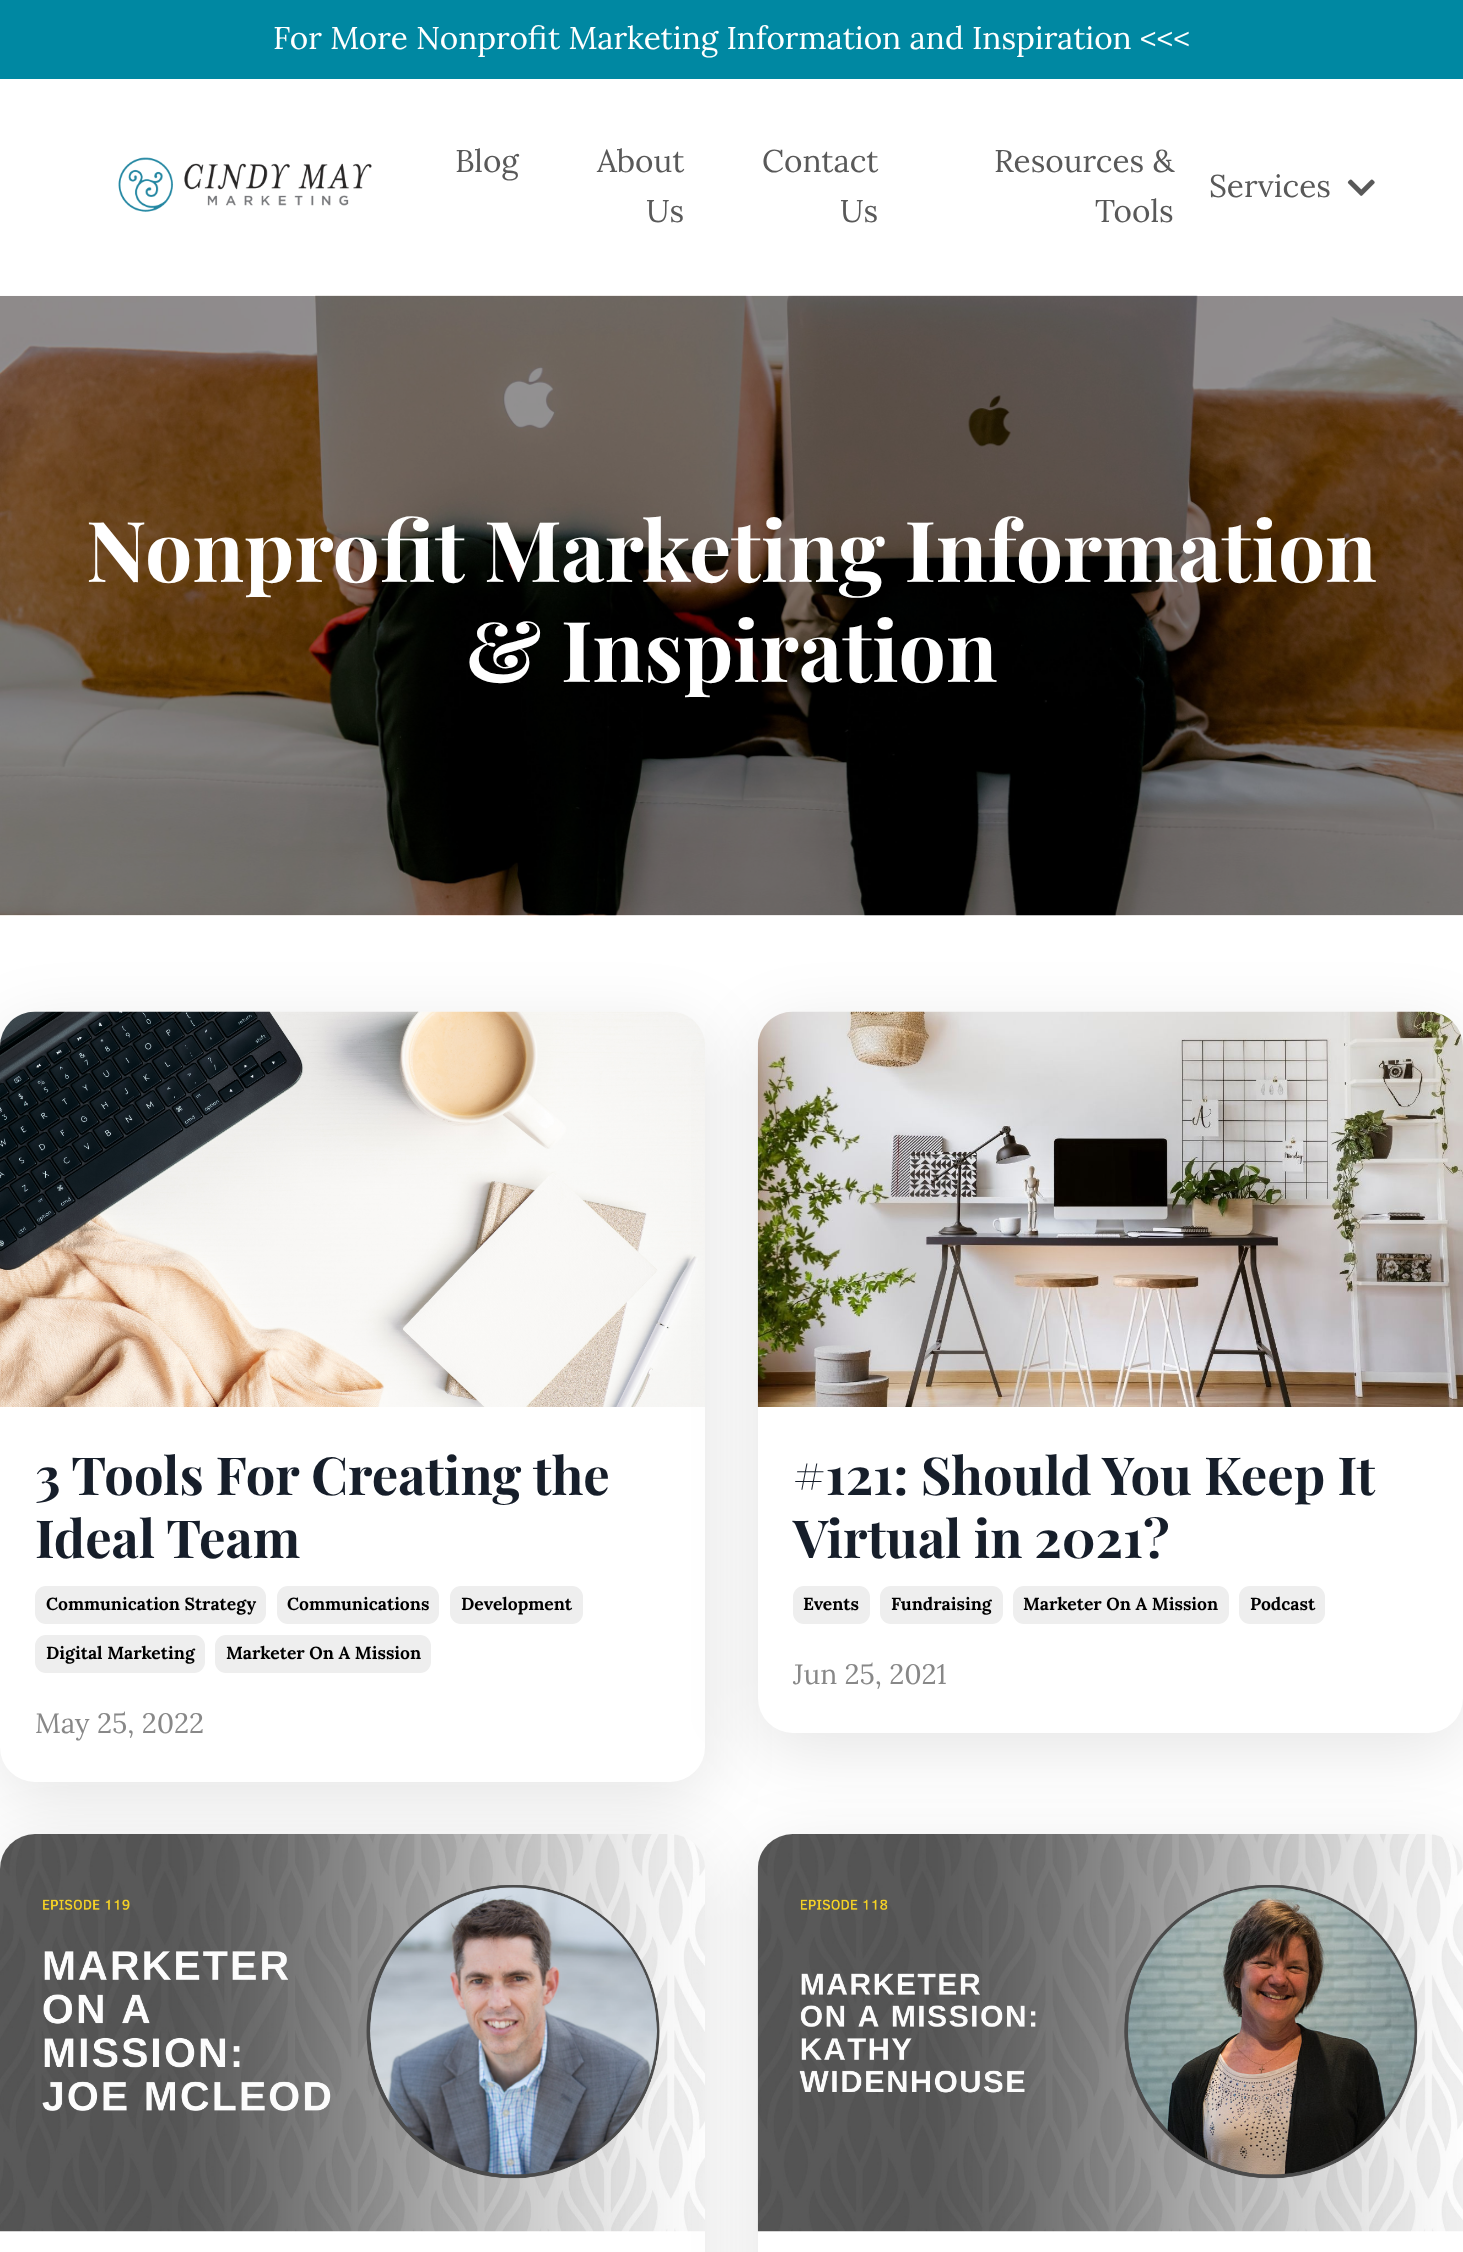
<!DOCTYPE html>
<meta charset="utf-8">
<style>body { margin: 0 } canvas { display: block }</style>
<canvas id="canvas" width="1463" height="2252"></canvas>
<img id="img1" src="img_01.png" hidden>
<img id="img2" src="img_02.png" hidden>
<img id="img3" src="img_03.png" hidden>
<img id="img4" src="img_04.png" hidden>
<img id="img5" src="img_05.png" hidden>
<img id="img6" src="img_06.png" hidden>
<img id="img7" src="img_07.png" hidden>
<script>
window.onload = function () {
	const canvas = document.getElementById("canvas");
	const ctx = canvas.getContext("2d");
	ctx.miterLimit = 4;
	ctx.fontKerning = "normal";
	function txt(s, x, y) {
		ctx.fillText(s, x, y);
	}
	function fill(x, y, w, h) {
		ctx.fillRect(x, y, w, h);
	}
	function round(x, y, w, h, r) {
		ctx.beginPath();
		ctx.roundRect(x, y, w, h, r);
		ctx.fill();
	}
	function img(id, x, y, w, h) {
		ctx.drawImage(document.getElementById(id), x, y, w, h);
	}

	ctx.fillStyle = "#FFFFFF";
	fill(0, 0, 1463, 2252);
	ctx.fillStyle = "#0088A2";
	fill(0, 0, 1463, 79);
	img("img1", 118, 157, 254, 55);
	img("img2", 1347, 179, 28, 17);
	img("img3", 0, 295, 1463, 621);
	ctx.fillStyle = "rgba(0, 0, 0, 0.1)";
	ctx.filter = "blur(35px)";
	ctx.beginPath();
	ctx.roundRect(0, 1029, 705, 770, 35);
	ctx.fill();
	ctx.filter = "none";
	ctx.fillStyle = "#FFFFFF";
	round(0, 1012, 705, 770, 35);
	img("img4", 0, 1011, 705, 396);
	ctx.fillStyle = "#EEEEEE";
	round(35, 1586, 231, 38, 11);
	round(277, 1586, 162, 38, 11);
	round(450, 1586, 133, 38, 11);
	round(35, 1635, 170, 38, 11);
	round(215, 1635, 216, 38, 11);
	ctx.fillStyle = "rgba(0, 0, 0, 0.1)";
	ctx.filter = "blur(35px)";
	ctx.beginPath();
	ctx.roundRect(758, 1029, 705, 721, 35);
	ctx.fill();
	ctx.filter = "none";
	ctx.fillStyle = "#FFFFFF";
	round(758, 1012, 705, 721, 35);
	img("img5", 757, 1011, 706, 396);
	ctx.fillStyle = "#EEEEEE";
	round(793, 1586, 77, 38, 11);
	round(880, 1586, 123, 38, 11);
	round(1013, 1586, 216, 38, 11);
	round(1239, 1586, 86, 38, 11);
	ctx.fillStyle = "rgba(0, 0, 0, 0.1)";
	ctx.filter = "blur(35px)";
	ctx.beginPath();
	ctx.roundRect(0, 1852, 705, 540, 35);
	ctx.fill();
	ctx.filter = "none";
	ctx.fillStyle = "#FFFFFF";
	round(0, 1834, 705, 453, 35);
	img("img6", 0, 1834, 705, 398);
	ctx.fillStyle = "rgba(0, 0, 0, 0.1)";
	ctx.filter = "blur(35px)";
	ctx.beginPath();
	ctx.roundRect(758, 1852, 705, 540, 35);
	ctx.fill();
	ctx.filter = "none";
	ctx.fillStyle = "#FFFFFF";
	round(758, 1834, 705, 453, 35);
	img("img7", 757, 1834, 706, 398);
	ctx.font = "31.5px Lora";
	txt("For More Nonprofit Marketing Information and Inspiration <<<", 273, 49);
	ctx.fillStyle = "#595959";
	txt("Blog", 455, 172);
	txt("About", 597, 172);
	txt("Us", 646, 222);
	txt("Contact", 762, 172);
	txt("Us", 840, 222);
	txt("Resources &", 994, 172);
	txt("Tools", 1095, 222);
	txt("Services", 1209, 197);
	ctx.font = "bold 84px Playfair Display";
	ctx.fillStyle = "#FFFFFF";
	txt("Nonprofit Marketing Information", 86, 582);
	txt("& Inspiration", 466, 682);
	ctx.font = "bold 52.5px Playfair Display";
	ctx.fillStyle = "#161E2A";
	txt("3 Tools For Creating the", 35, 1495);
	txt("Ideal Team", 35, 1558);
	ctx.font = "bold 17.5px Lora";
	ctx.fillStyle = "#000000";
	txt("Communication Strategy", 46, 1610);
	txt("Communications", 287, 1610);
	txt("Development", 461, 1610);
	txt("Digital Marketing", 46, 1659);
	txt("Marketer On A Mission", 226, 1659);
	ctx.font = "28px Lora";
	ctx.fillStyle = "#888888";
	txt("May 25, 2022", 35, 1733);
	ctx.font = "bold 52.5px Playfair Display";
	ctx.fillStyle = "#161E2A";
	txt("#121: Should You Keep It", 793, 1495);
	txt("Virtual in 2021?", 793, 1558);
	ctx.font = "bold 17.5px Lora";
	ctx.fillStyle = "#000000";
	txt("Events", 803, 1610);
	txt("Fundraising", 891, 1610);
	txt("Marketer On A Mission", 1023, 1610);
	txt("Podcast", 1250, 1610);
	ctx.font = "28px Lora";
	ctx.fillStyle = "#888888";
	txt("Jun 25, 2021", 793, 1684);
};
</script>
